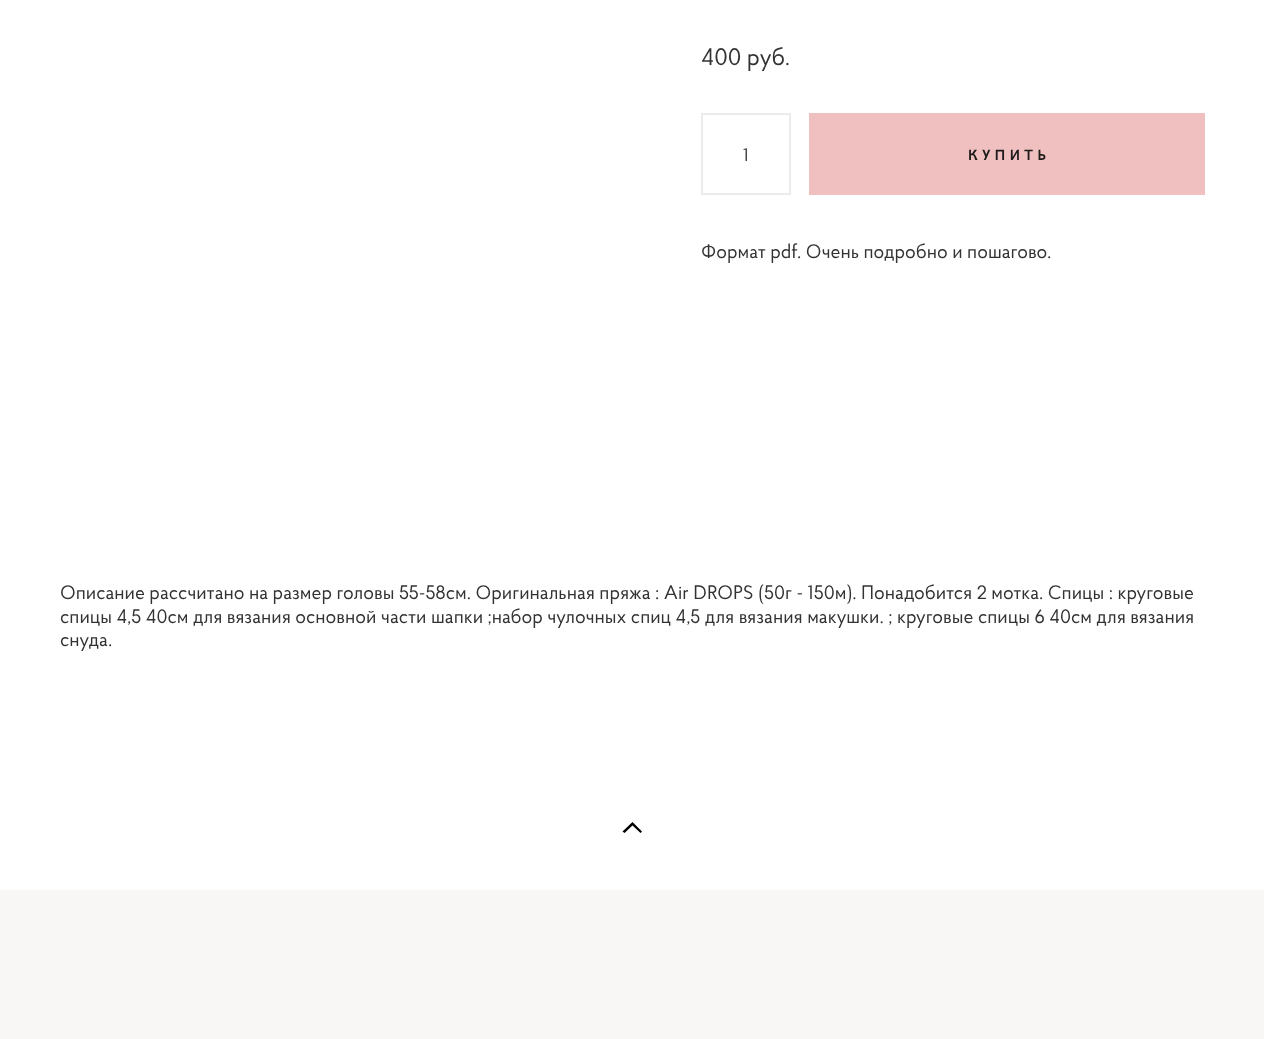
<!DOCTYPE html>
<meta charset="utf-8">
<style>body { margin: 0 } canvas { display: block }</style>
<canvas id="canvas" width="1264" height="1039"></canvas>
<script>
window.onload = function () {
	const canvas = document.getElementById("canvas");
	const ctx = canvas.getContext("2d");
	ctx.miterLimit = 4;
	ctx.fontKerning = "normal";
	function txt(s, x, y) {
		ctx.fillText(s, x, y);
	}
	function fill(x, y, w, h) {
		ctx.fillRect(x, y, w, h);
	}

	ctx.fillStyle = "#FFFFFF";
	fill(0, 0, 1264, 1039);
	ctx.strokeStyle = "#EBEBEB";
	ctx.lineWidth = 2;
	ctx.strokeRect(702, 114, 88, 80);
	ctx.fillStyle = "#F0C0C0";
	fill(809, 113, 396, 82);
	ctx.fillStyle = "#000000";
	ctx.beginPath();
	ctx.moveTo(642, 831.5);
	ctx.lineTo(640.5, 833);
	ctx.lineTo(632.5, 825.5);
	ctx.lineTo(624.5, 833);
	ctx.lineTo(622.5, 831.5);
	ctx.lineTo(632.5, 822);
	ctx.closePath();
	ctx.fill("evenodd");
	ctx.fillStyle = "#F8F7F5";
	fill(0, 890, 1264, 149);
	ctx.font = "24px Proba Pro";
	ctx.fillStyle = "#333333";
	txt("400 pуб.", 701, 65);
	ctx.font = "18px Proba Pro";
	txt("1", 743, 161);
	ctx.letterSpacing = "4.5px";
	ctx.font = "bold 15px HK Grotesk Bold";
	ctx.fillStyle = "#1F1B1B";
	txt("КУПИТЬ", 968, 160);
	ctx.letterSpacing = "0px";
	ctx.font = "19.5px Proba Pro";
	ctx.fillStyle = "#333333";
	txt("Формат pdf. Очень подробно и пошагово.", 701, 258);
	txt("Описание рассчитано на размер головы 55-58см. Оригинальная пряжа : Air DROPS (50г - 150м). Понадобится 2 мотка. Спицы : круговые", 60, 599);
	txt("спицы 4,5 40см для вязания основной части шапки ;набор чулочных спиц 4,5 для вязания макушки. ; круговые спицы 6 40см для вязания", 60, 623);
	txt("снуда.", 60, 646);
};
</script>
